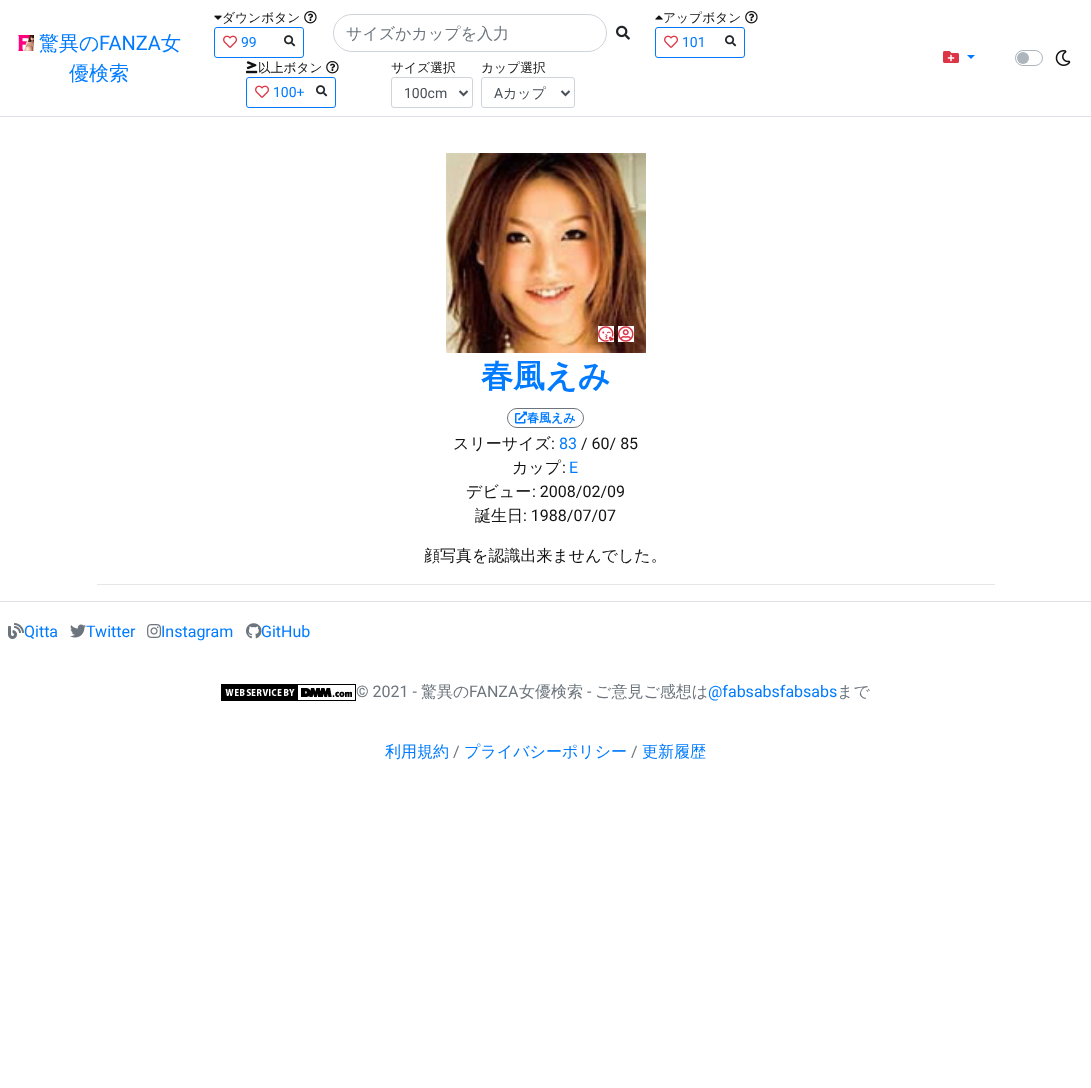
<!DOCTYPE html>
<meta charset="utf-8">
<style>body { margin: 0 } canvas { display: block }</style>
<canvas id="canvas" width="1091" height="1088"></canvas>
<img id="img1" src="img_01.png" hidden>
<img id="img2" src="img_02.png" hidden>
<img id="img3" src="img_03.png" hidden>
<img id="img4" src="img_04.png" hidden>
<img id="img5" src="img_05.png" hidden>
<img id="img6" src="img_06.png" hidden>
<img id="img7" src="img_07.png" hidden>
<img id="img8" src="img_08.png" hidden>
<img id="img9" src="img_09.png" hidden>
<img id="img10" src="img_10.png" hidden>
<img id="img11" src="img_11.png" hidden>
<img id="img12" src="img_12.png" hidden>
<img id="img13" src="img_13.png" hidden>
<img id="img14" src="img_14.png" hidden>
<img id="img15" src="img_15.png" hidden>
<img id="img16" src="img_16.png" hidden>
<img id="img17" src="img_17.png" hidden>
<img id="img18" src="img_18.png" hidden>
<img id="img19" src="img_19.png" hidden>
<script>
window.onload = function () {
	const canvas = document.getElementById("canvas");
	const ctx = canvas.getContext("2d");
	ctx.miterLimit = 4;
	ctx.fontKerning = "normal";
	function txt(s, x, y) {
		ctx.fillText(s, x, y);
	}
	function fill(x, y, w, h) {
		ctx.fillRect(x, y, w, h);
	}
	function img(id, x, y, w, h) {
		ctx.drawImage(document.getElementById(id), x, y, w, h);
	}

	ctx.fillStyle = "#FFFFFF";
	fill(0, 0, 1091, 1088);
	ctx.fillStyle = "#DEE2E6";
	fill(0, 116, 1091, 1);
	img("img1", 18, 35, 16, 16);
	img("img2", 214, 15, 8, 5);
	img("img3", 304, 11, 13, 13);
	ctx.beginPath();
	ctx.roundRect(214.5, 27.5, 89, 30, 2.5);
	ctx.strokeStyle = "#007BFF";
	ctx.stroke();
	img("img4", 223, 35, 14, 13);
	img("img5", 284, 35, 12, 12);
	ctx.beginPath();
	ctx.roundRect(333.5, 14.5, 273, 37, 18.5);
	ctx.strokeStyle = "#CED4DA";
	ctx.stroke();
	img("img6", 616, 25, 14, 15);
	img("img7", 655, 15, 8, 5);
	img("img3", 745, 11, 13, 13);
	ctx.beginPath();
	ctx.roundRect(655.5, 27.5, 89, 30, 2.5);
	ctx.strokeStyle = "#007BFF";
	ctx.stroke();
	img("img4", 664, 35, 14, 13);
	img("img5", 725, 35, 12, 12);
	img("img8", 246, 61, 12, 13);
	img("img3", 326, 61, 13, 13);
	ctx.beginPath();
	ctx.roundRect(246.5, 77.5, 89, 30, 2.5);
	ctx.stroke();
	img("img4", 255, 85, 14, 13);
	img("img5", 316, 85, 12, 12);
	ctx.beginPath();
	ctx.roundRect(391.5, 77.5, 81, 30, 2.5);
	ctx.strokeStyle = "#CED4DA";
	ctx.stroke();
	ctx.beginPath();
	ctx.moveTo(459.5, 91);
	ctx.lineTo(463.5, 95);
	ctx.lineTo(467.5, 91);
	ctx.strokeStyle = "#495057";
	ctx.lineWidth = 2;
	ctx.stroke();
	ctx.beginPath();
	ctx.roundRect(481.5, 77.5, 93, 30, 2.5);
	ctx.strokeStyle = "#CED4DA";
	ctx.lineWidth = 1;
	ctx.stroke();
	ctx.beginPath();
	ctx.moveTo(561.5, 91);
	ctx.lineTo(565.5, 95);
	ctx.lineTo(569.5, 91);
	ctx.strokeStyle = "#495057";
	ctx.lineWidth = 2;
	ctx.stroke();
	img("img9", 943, 51, 16, 12);
	ctx.fillStyle = "#007BFF";
	ctx.beginPath();
	ctx.moveTo(967, 55);
	ctx.lineTo(975, 55);
	ctx.lineTo(971, 59);
	ctx.closePath();
	ctx.fill();
	ctx.beginPath();
	ctx.roundRect(1015.5, 50.5, 27, 15, 7.5);
	ctx.strokeStyle = "#ADB5BD";
	ctx.lineWidth = 1;
	ctx.stroke();
	ctx.fillStyle = "#ADB5BD";
	ctx.beginPath();
	ctx.arc(1023, 58, 6, 0, Math.PI * 2);
	ctx.fill();
	img("img10", 1055, 50, 16, 16);
	img("img11", 446, 153, 200, 200);
	ctx.fillStyle = "#FFFFFF";
	fill(598, 326, 16, 16);
	img("img12", 598, 326, 16, 16);
	fill(618, 326, 16, 16);
	img("img13", 618, 326, 16, 16);
	ctx.beginPath();
	ctx.roundRect(507.5, 408.5, 76, 19, 9.5);
	ctx.strokeStyle = "#6C757D";
	ctx.stroke();
	img("img14", 515, 411, 12, 13);
	ctx.fillStyle = "#E6E6E6";
	fill(97, 584, 898, 1);
	ctx.fillStyle = "#DEE2E6";
	fill(0, 601, 1091, 1);
	img("img15", 8, 623, 16, 16);
	img("img16", 70, 624, 16, 14);
	img("img17", 147, 624, 15, 14);
	img("img18", 246, 623, 16, 16);
	img("img19", 221, 684, 135, 17);
	ctx.font = "500 20px WenQuanYi Zen Hei";
	ctx.fillStyle = "#007BFF";
	txt("驚異の", 39, 50);
	ctx.font = "20px Roboto";
	txt("FANZA", 99, 50);
	ctx.font = "500 20px WenQuanYi Zen Hei";
	txt("女", 161, 50);
	txt("優検索", 69, 80);
	ctx.font = "500 12.75px WenQuanYi Zen Hei";
	ctx.fillStyle = "#111111";
	txt("ダウンボタン", 222, 22);
	ctx.font = "14px Roboto";
	ctx.fillStyle = "#007BFF";
	txt("99", 241, 47);
	ctx.font = "500 16px WenQuanYi Zen Hei";
	ctx.fillStyle = "#6C757D";
	txt("サイズかカップを入力", 346, 39);
	ctx.font = "500 12.75px WenQuanYi Zen Hei";
	ctx.fillStyle = "#111111";
	txt("アップボタン", 663, 22);
	ctx.font = "14px Roboto";
	ctx.fillStyle = "#007BFF";
	txt("101", 682, 47);
	ctx.font = "500 12.75px WenQuanYi Zen Hei";
	ctx.fillStyle = "#111111";
	txt("以上ボタン", 258, 72);
	ctx.font = "14px Roboto";
	ctx.fillStyle = "#007BFF";
	txt("100+", 273, 97);
	ctx.font = "500 12.75px WenQuanYi Zen Hei";
	ctx.fillStyle = "#111111";
	txt("サイズ選択", 391, 72);
	ctx.font = "14px Roboto";
	ctx.fillStyle = "#495057";
	txt("100cm", 404, 98);
	ctx.font = "500 12.75px WenQuanYi Zen Hei";
	ctx.fillStyle = "#111111";
	txt("カップ選択", 481, 72);
	ctx.font = "14px Roboto";
	ctx.fillStyle = "#495057";
	txt("A", 494, 98);
	ctx.font = "500 14px WenQuanYi Zen Hei";
	txt("カップ", 503, 98);
	ctx.font = "bold 32px WenQuanYi Zen Hei";
	ctx.fillStyle = "#007BFF";
	txt("春風えみ", 481, 387);
	ctx.font = "bold 12px WenQuanYi Zen Hei";
	txt("春風えみ", 527, 422);
	ctx.font = "500 16px WenQuanYi Zen Hei";
	ctx.fillStyle = "#111111";
	txt("スリーサイズ", 453, 449);
	ctx.font = "16px Roboto";
	txt(":", 551, 449);
	ctx.fillStyle = "#007BFF";
	txt("83", 559, 449);
	ctx.fillStyle = "#111111";
	txt("/ 60/ 85", 581, 449);
	ctx.font = "500 16px WenQuanYi Zen Hei";
	txt("カップ", 512, 473);
	ctx.font = "16px Roboto";
	txt(":", 562, 473);
	ctx.fillStyle = "#007BFF";
	txt("E", 569, 473);
	ctx.font = "500 16px WenQuanYi Zen Hei";
	ctx.fillStyle = "#111111";
	txt("デビュー", 466, 497);
	ctx.font = "16px Roboto";
	txt(": 2008/02/09", 532, 497);
	ctx.font = "500 16px WenQuanYi Zen Hei";
	txt("誕生日", 475, 521);
	ctx.font = "16px Roboto";
	txt(": 1988/07/07", 523, 521);
	ctx.font = "500 16px WenQuanYi Zen Hei";
	txt("顔写真を認識出来ませんでした。", 424, 561);
	ctx.font = "16px Roboto";
	ctx.fillStyle = "#007BFF";
	txt("Qitta", 24, 637);
	txt("Twitter", 86, 637);
	txt("Instagram", 161, 637);
	txt("GitHub", 261, 637);
	ctx.fillStyle = "#6C757D";
	txt("© 2021 -", 356, 697);
	ctx.font = "500 16px WenQuanYi Zen Hei";
	txt("驚異の", 421, 697);
	ctx.font = "16px Roboto";
	txt("FANZA", 469, 697);
	ctx.font = "500 16px WenQuanYi Zen Hei";
	txt("女優検索", 519, 697);
	ctx.font = "16px Roboto";
	txt("-", 587, 697);
	ctx.font = "500 16px WenQuanYi Zen Hei";
	txt("ご意見ご感想は", 595, 697);
	ctx.font = "16px Roboto";
	ctx.fillStyle = "#007BFF";
	txt("@fabsabsfabsabs", 708, 697);
	ctx.font = "500 16px WenQuanYi Zen Hei";
	ctx.fillStyle = "#6C757D";
	txt("まで", 837, 697);
	ctx.fillStyle = "#007BFF";
	txt("利用規約", 385, 757);
	ctx.font = "16px Roboto";
	ctx.fillStyle = "#6C757D";
	txt("/", 453, 757);
	ctx.font = "500 16px WenQuanYi Zen Hei";
	ctx.fillStyle = "#007BFF";
	txt("プライバシーポリシー", 464, 757);
	ctx.font = "16px Roboto";
	ctx.fillStyle = "#6C757D";
	txt("/", 631, 757);
	ctx.font = "500 16px WenQuanYi Zen Hei";
	ctx.fillStyle = "#007BFF";
	txt("更新履歴", 642, 757);
};
</script>
